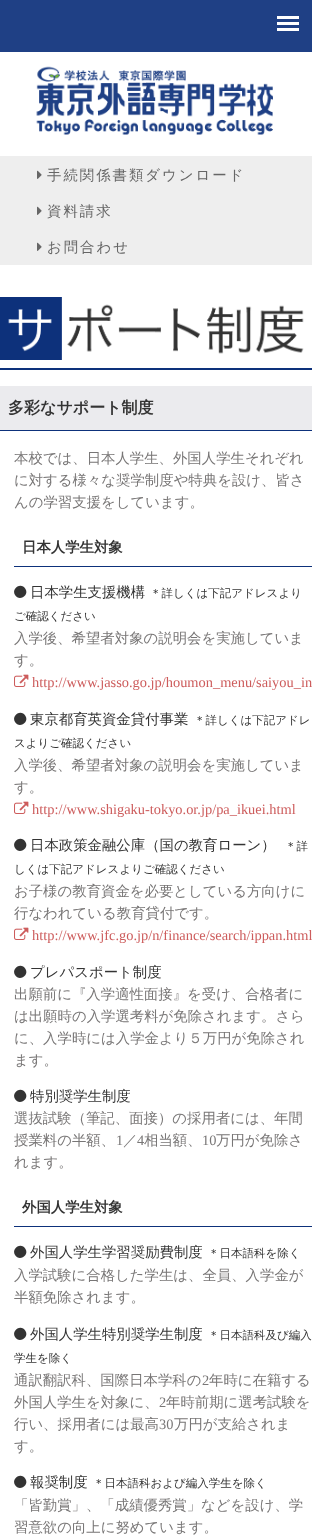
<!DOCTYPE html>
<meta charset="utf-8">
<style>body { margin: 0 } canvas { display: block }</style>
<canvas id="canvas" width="312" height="1537"></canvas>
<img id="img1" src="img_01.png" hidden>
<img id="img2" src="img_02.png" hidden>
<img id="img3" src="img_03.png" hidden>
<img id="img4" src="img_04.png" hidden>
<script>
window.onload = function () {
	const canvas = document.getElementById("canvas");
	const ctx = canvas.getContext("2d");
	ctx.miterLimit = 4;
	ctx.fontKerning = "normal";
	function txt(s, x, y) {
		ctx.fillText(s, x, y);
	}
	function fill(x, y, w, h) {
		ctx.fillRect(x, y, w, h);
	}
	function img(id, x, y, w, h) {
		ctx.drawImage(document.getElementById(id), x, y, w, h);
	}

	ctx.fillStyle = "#FFFFFF";
	fill(0, 0, 312, 1537);
	ctx.fillStyle = "#1F4085";
	fill(0, 0, 312, 52);
	ctx.fillStyle = "#FFFFFF";
	fill(277, 16, 22, 3);
	fill(277, 22, 22, 3);
	fill(277, 28, 22, 3);
	img("img1", 36, 66, 237, 69);
	ctx.fillStyle = "#EEEEEE";
	fill(0, 156, 312, 109);
	img("img2", 37, 170, 5, 9);
	img("img2", 37, 206, 5, 9);
	img("img2", 37, 242, 5, 9);
	ctx.fillStyle = "#0D317B";
	fill(0, 368, 312, 2);
	img("img3", 0, 297, 304, 63);
	ctx.fillStyle = "#EBEBEE";
	fill(0, 386, 312, 44);
	ctx.fillStyle = "#0D317B";
	fill(0, 430, 312, 1);
	fill(14, 566, 298, 1);
	ctx.fillStyle = "#333333";
	ctx.beginPath();
	ctx.moveTo(25.5, 589);
	ctx.bezierCurveTo(29.5, 595.5, 19, 602, 15, 595);
	ctx.bezierCurveTo(11, 588, 21.5, 581.5, 25.5, 589);
	ctx.closePath();
	ctx.fill();
	img("img4", 14, 674, 15, 13);
	ctx.beginPath();
	ctx.moveTo(25.5, 716);
	ctx.bezierCurveTo(29.5, 722.5, 19, 729, 15, 722);
	ctx.bezierCurveTo(11, 715, 21.5, 708.5, 25.5, 716);
	ctx.closePath();
	ctx.fill();
	img("img4", 14, 801, 15, 13);
	ctx.beginPath();
	ctx.moveTo(25.5, 842);
	ctx.bezierCurveTo(29.5, 848.5, 19, 855, 15, 848);
	ctx.bezierCurveTo(11, 841, 21.5, 834.5, 25.5, 842);
	ctx.closePath();
	ctx.fill();
	img("img4", 14, 927, 15, 13);
	ctx.beginPath();
	ctx.moveTo(25.5, 969);
	ctx.bezierCurveTo(29.5, 975.5, 19, 982, 15, 975);
	ctx.bezierCurveTo(11, 968, 21.5, 961.5, 25.5, 969);
	ctx.closePath();
	ctx.fill();
	ctx.beginPath();
	ctx.moveTo(25.5, 1093);
	ctx.bezierCurveTo(29.5, 1099.5, 19, 1106, 15, 1099);
	ctx.bezierCurveTo(11, 1092, 21.5, 1085.5, 25.5, 1093);
	ctx.closePath();
	ctx.fill();
	ctx.fillStyle = "#0D317B";
	fill(14, 1226, 298, 1);
	ctx.fillStyle = "#333333";
	ctx.beginPath();
	ctx.moveTo(25.5, 1249);
	ctx.bezierCurveTo(29.5, 1255.5, 19, 1262, 15, 1255);
	ctx.bezierCurveTo(11, 1248, 21.5, 1241.5, 25.5, 1249);
	ctx.closePath();
	ctx.fill();
	ctx.beginPath();
	ctx.moveTo(25.5, 1331);
	ctx.bezierCurveTo(29.5, 1337.5, 19, 1344, 15, 1337);
	ctx.bezierCurveTo(11, 1330, 21.5, 1323.5, 25.5, 1331);
	ctx.closePath();
	ctx.fill();
	ctx.beginPath();
	ctx.moveTo(25.5, 1479);
	ctx.bezierCurveTo(29.5, 1485.5, 19, 1492, 15, 1485);
	ctx.bezierCurveTo(11, 1478, 21.5, 1471.5, 25.5, 1479);
	ctx.closePath();
	ctx.fill();
	ctx.letterSpacing = "2px";
	ctx.font = "500 14.4px WenQuanYi Zen Hei";
	ctx.fillStyle = "#666666";
	txt("手続関係書類ダウンロード", 47, 180);
	txt("資料請求", 47, 216);
	txt("お問合わせ", 47, 252);
	ctx.letterSpacing = "0px";
	ctx.font = "bold 16px WenQuanYi Zen Hei";
	ctx.fillStyle = "#343434";
	txt("多彩なサポート制度", 8, 413);
	ctx.font = "500 14.4px WenQuanYi Zen Hei";
	ctx.fillStyle = "#787676";
	txt("本校では、日本人学生、外国人学生それぞれ", 14, 463);
	txt("に対する様々な奨学制度や特典を設け、皆さ", 14, 485);
	txt("んの学習支援をしています。", 14, 507);
	ctx.font = "bold 14.4px WenQuanYi Zen Hei";
	ctx.fillStyle = "#343434";
	txt("日本人学生対象", 22, 552);
	ctx.font = "500 14.4px WenQuanYi Zen Hei";
	txt("日本学生支援機構", 30, 597);
	ctx.font = "500 11.5px WenQuanYi Zen Hei";
	txt("＊詳しくは下記アドレスより", 150, 597);
	txt("ご確認ください", 14, 620);
	ctx.font = "500 14.4px WenQuanYi Zen Hei";
	ctx.fillStyle = "#787676";
	txt("入学後、希望者対象の説明会を実施していま", 14, 643);
	txt("す。", 14, 665);
	ctx.font = "14.4px Liberation Serif";
	ctx.fillStyle = "#CD5C5C";
	txt("http://www.jasso.go.jp/houmon_menu/saiyou_in", 32, 687);
	ctx.font = "500 14.4px WenQuanYi Zen Hei";
	ctx.fillStyle = "#343434";
	txt("東京都育英資金貸付事業", 30, 724);
	ctx.font = "500 11.5px WenQuanYi Zen Hei";
	txt("＊詳しくは下記アドレ", 194, 724);
	txt("スよりご確認ください", 14, 747);
	ctx.font = "500 14.4px WenQuanYi Zen Hei";
	ctx.fillStyle = "#787676";
	txt("入学後、希望者対象の説明会を実施していま", 14, 770);
	txt("す。", 14, 792);
	ctx.font = "14.4px Liberation Serif";
	ctx.fillStyle = "#CD5C5C";
	txt("http://www.shigaku-tokyo.or.jp/pa_ikuei.html", 32, 814);
	ctx.font = "500 14.4px WenQuanYi Zen Hei";
	ctx.fillStyle = "#343434";
	txt("日本政策金融公庫（国の教育ローン）", 30, 850);
	ctx.font = "500 11.5px WenQuanYi Zen Hei";
	txt("＊詳", 285, 850);
	txt("しくは下記アドレスよりご確認ください", 14, 873);
	ctx.font = "500 14.4px WenQuanYi Zen Hei";
	ctx.fillStyle = "#787676";
	txt("お子様の教育資金を必要としている方向けに", 14, 896);
	txt("行なわれている教育貸付です。", 14, 918);
	ctx.font = "14.4px Liberation Serif";
	ctx.fillStyle = "#CD5C5C";
	txt("http://www.jfc.go.jp/n/finance/search/ippan.html", 32, 940);
	ctx.font = "500 14.4px WenQuanYi Zen Hei";
	ctx.fillStyle = "#343434";
	txt("プレパスポート制度", 30, 977);
	ctx.fillStyle = "#787676";
	txt("出願前に『入学適性面接』を受け、合格者に", 14, 999);
	txt("は出願時の入学選考料が免除されます。さら", 14, 1021);
	txt("に、入学時には入学金より５万円が免除され", 14, 1043);
	txt("ます。", 14, 1065);
	ctx.fillStyle = "#343434";
	txt("特別奨学生制度", 30, 1101);
	ctx.fillStyle = "#787676";
	txt("選抜試験（筆記、面接）の採用者には、年間", 14, 1123);
	txt("授業料の半額、", 14, 1145);
	ctx.font = "14.4px Liberation Serif";
	txt("1", 116, 1145);
	ctx.font = "500 14.4px WenQuanYi Zen Hei";
	txt("／", 123, 1145);
	ctx.font = "14.4px Liberation Serif";
	txt("4", 137, 1145);
	ctx.font = "500 14.4px WenQuanYi Zen Hei";
	txt("相当額、", 144, 1145);
	ctx.font = "14.4px Liberation Serif";
	txt("10", 202, 1145);
	ctx.font = "500 14.4px WenQuanYi Zen Hei";
	txt("万円が免除さ", 216, 1145);
	txt("れます。", 14, 1167);
	ctx.font = "bold 14.4px WenQuanYi Zen Hei";
	ctx.fillStyle = "#343434";
	txt("外国人学生対象", 22, 1212);
	ctx.font = "500 14.4px WenQuanYi Zen Hei";
	txt("外国人学生学習奨励費制度", 30, 1257);
	ctx.font = "500 11.5px WenQuanYi Zen Hei";
	txt("＊日本語科を除く", 208, 1257);
	ctx.font = "500 14.4px WenQuanYi Zen Hei";
	ctx.fillStyle = "#787676";
	txt("入学試験に合格した学生は、全員、入学金が", 14, 1280);
	txt("半額免除されます。", 14, 1302);
	ctx.fillStyle = "#343434";
	txt("外国人学生特別奨学生制度", 30, 1339);
	ctx.font = "500 11.5px WenQuanYi Zen Hei";
	txt("＊日本語科及び編入", 208, 1339);
	txt("学生を除く", 14, 1362);
	ctx.font = "500 14.4px WenQuanYi Zen Hei";
	ctx.fillStyle = "#787676";
	txt("通訳翻訳科、国際日本学科の", 14, 1385);
	ctx.font = "14.4px Liberation Serif";
	txt("2", 202, 1385);
	ctx.font = "500 14.4px WenQuanYi Zen Hei";
	txt("年時に在籍する", 209, 1385);
	txt("外国人学生を対象に、", 14, 1407);
	ctx.font = "14.4px Liberation Serif";
	txt("2", 159, 1407);
	ctx.font = "500 14.4px WenQuanYi Zen Hei";
	txt("年時前期に選考試験を", 166, 1407);
	txt("行い、採用者には最高", 14, 1429);
	ctx.font = "14.4px Liberation Serif";
	txt("30", 159, 1429);
	ctx.font = "500 14.4px WenQuanYi Zen Hei";
	txt("万円が支給されま", 174, 1429);
	txt("す。", 14, 1451);
	ctx.fillStyle = "#343434";
	txt("報奨制度", 30, 1487);
	ctx.font = "500 11.5px WenQuanYi Zen Hei";
	txt("＊日本語科および編入学生を除く", 93, 1487);
	ctx.font = "500 14.4px WenQuanYi Zen Hei";
	ctx.fillStyle = "#787676";
	txt("「皆勤賞」、「成績優秀賞」などを設け、学", 14, 1510);
	txt("習意欲の向上に努めています。", 14, 1532);
};
</script>
